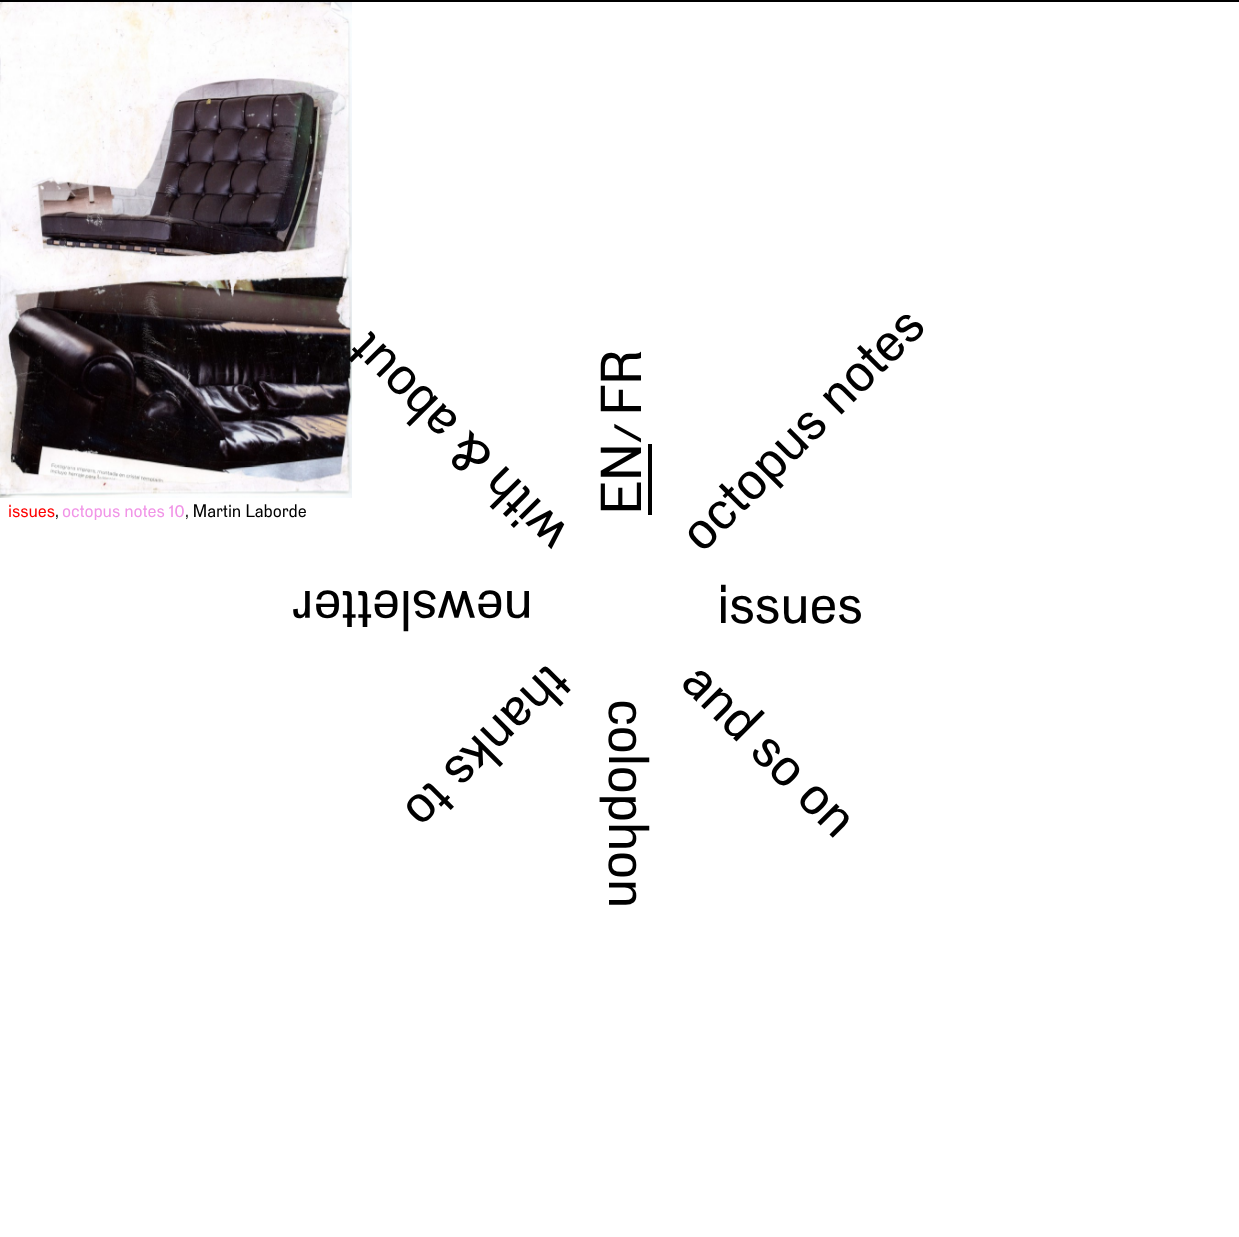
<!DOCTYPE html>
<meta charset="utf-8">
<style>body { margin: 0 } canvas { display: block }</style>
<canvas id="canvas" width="1239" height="1237"></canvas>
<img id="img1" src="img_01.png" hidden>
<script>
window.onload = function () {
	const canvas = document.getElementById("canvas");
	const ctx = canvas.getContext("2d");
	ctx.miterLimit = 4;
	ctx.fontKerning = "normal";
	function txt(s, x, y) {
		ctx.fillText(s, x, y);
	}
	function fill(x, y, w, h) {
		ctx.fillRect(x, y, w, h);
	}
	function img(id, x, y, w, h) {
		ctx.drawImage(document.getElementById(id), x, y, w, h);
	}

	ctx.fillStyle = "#FFFFFF";
	fill(0, 0, 1239, 1237);
	ctx.fillStyle = "#000000";
	fill(0, 0, 1239, 2);
	img("img1", 0, 2, 352, 496);
	fill(648, 444, 4, 71);
	ctx.letterSpacing = "-0.1px";
	ctx.font = "17.75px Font";
	ctx.fillStyle = "#FF0000";
	txt("issues", 8, 517);
	ctx.fillStyle = "#000000";
	txt(",", 55, 517);
	ctx.fillStyle = "#F194E7";
	txt("octopus notes 10", 62, 517);
	ctx.fillStyle = "#000000";
	txt(", Martin Laborde", 185, 517);
	ctx.letterSpacing = "-0.6px";
	ctx.font = "55.75px Font";
	ctx.save();
	ctx.translate(571, 531);
	ctx.rotate(-135 * Math.PI / 180);
	ctx.fillText("with & about", 0, 0);
	ctx.restore();
	ctx.save();
	ctx.translate(641, 416);
	ctx.rotate(-90 * Math.PI / 180);
	ctx.fillText("FR", 0, 0);
	ctx.restore();
	ctx.save();
	ctx.translate(641, 444);
	ctx.rotate(-90 * Math.PI / 180);
	ctx.fillText("/", 0, 0);
	ctx.restore();
	ctx.save();
	ctx.translate(641, 515);
	ctx.rotate(-90 * Math.PI / 180);
	ctx.fillText("EN", 0, 0);
	ctx.restore();
	ctx.save();
	ctx.translate(702, 554);
	ctx.rotate(-45 * Math.PI / 180);
	ctx.fillText("octopus notes", 0, 0);
	ctx.restore();
	ctx.save();
	ctx.translate(533, 591);
	ctx.rotate(180 * Math.PI / 180);
	ctx.fillText("newsletter", 0, 0);
	ctx.restore();
	txt("issues", 717, 623);
	ctx.save();
	ctx.translate(549, 661);
	ctx.rotate(135 * Math.PI / 180);
	ctx.fillText("thanks to", 0, 0);
	ctx.restore();
	ctx.save();
	ctx.translate(609, 699);
	ctx.rotate(90 * Math.PI / 180);
	ctx.fillText("colophon", 0, 0);
	ctx.restore();
	ctx.save();
	ctx.translate(679, 684);
	ctx.rotate(45 * Math.PI / 180);
	ctx.fillText("and so on", 0, 0);
	ctx.restore();
};
</script>
